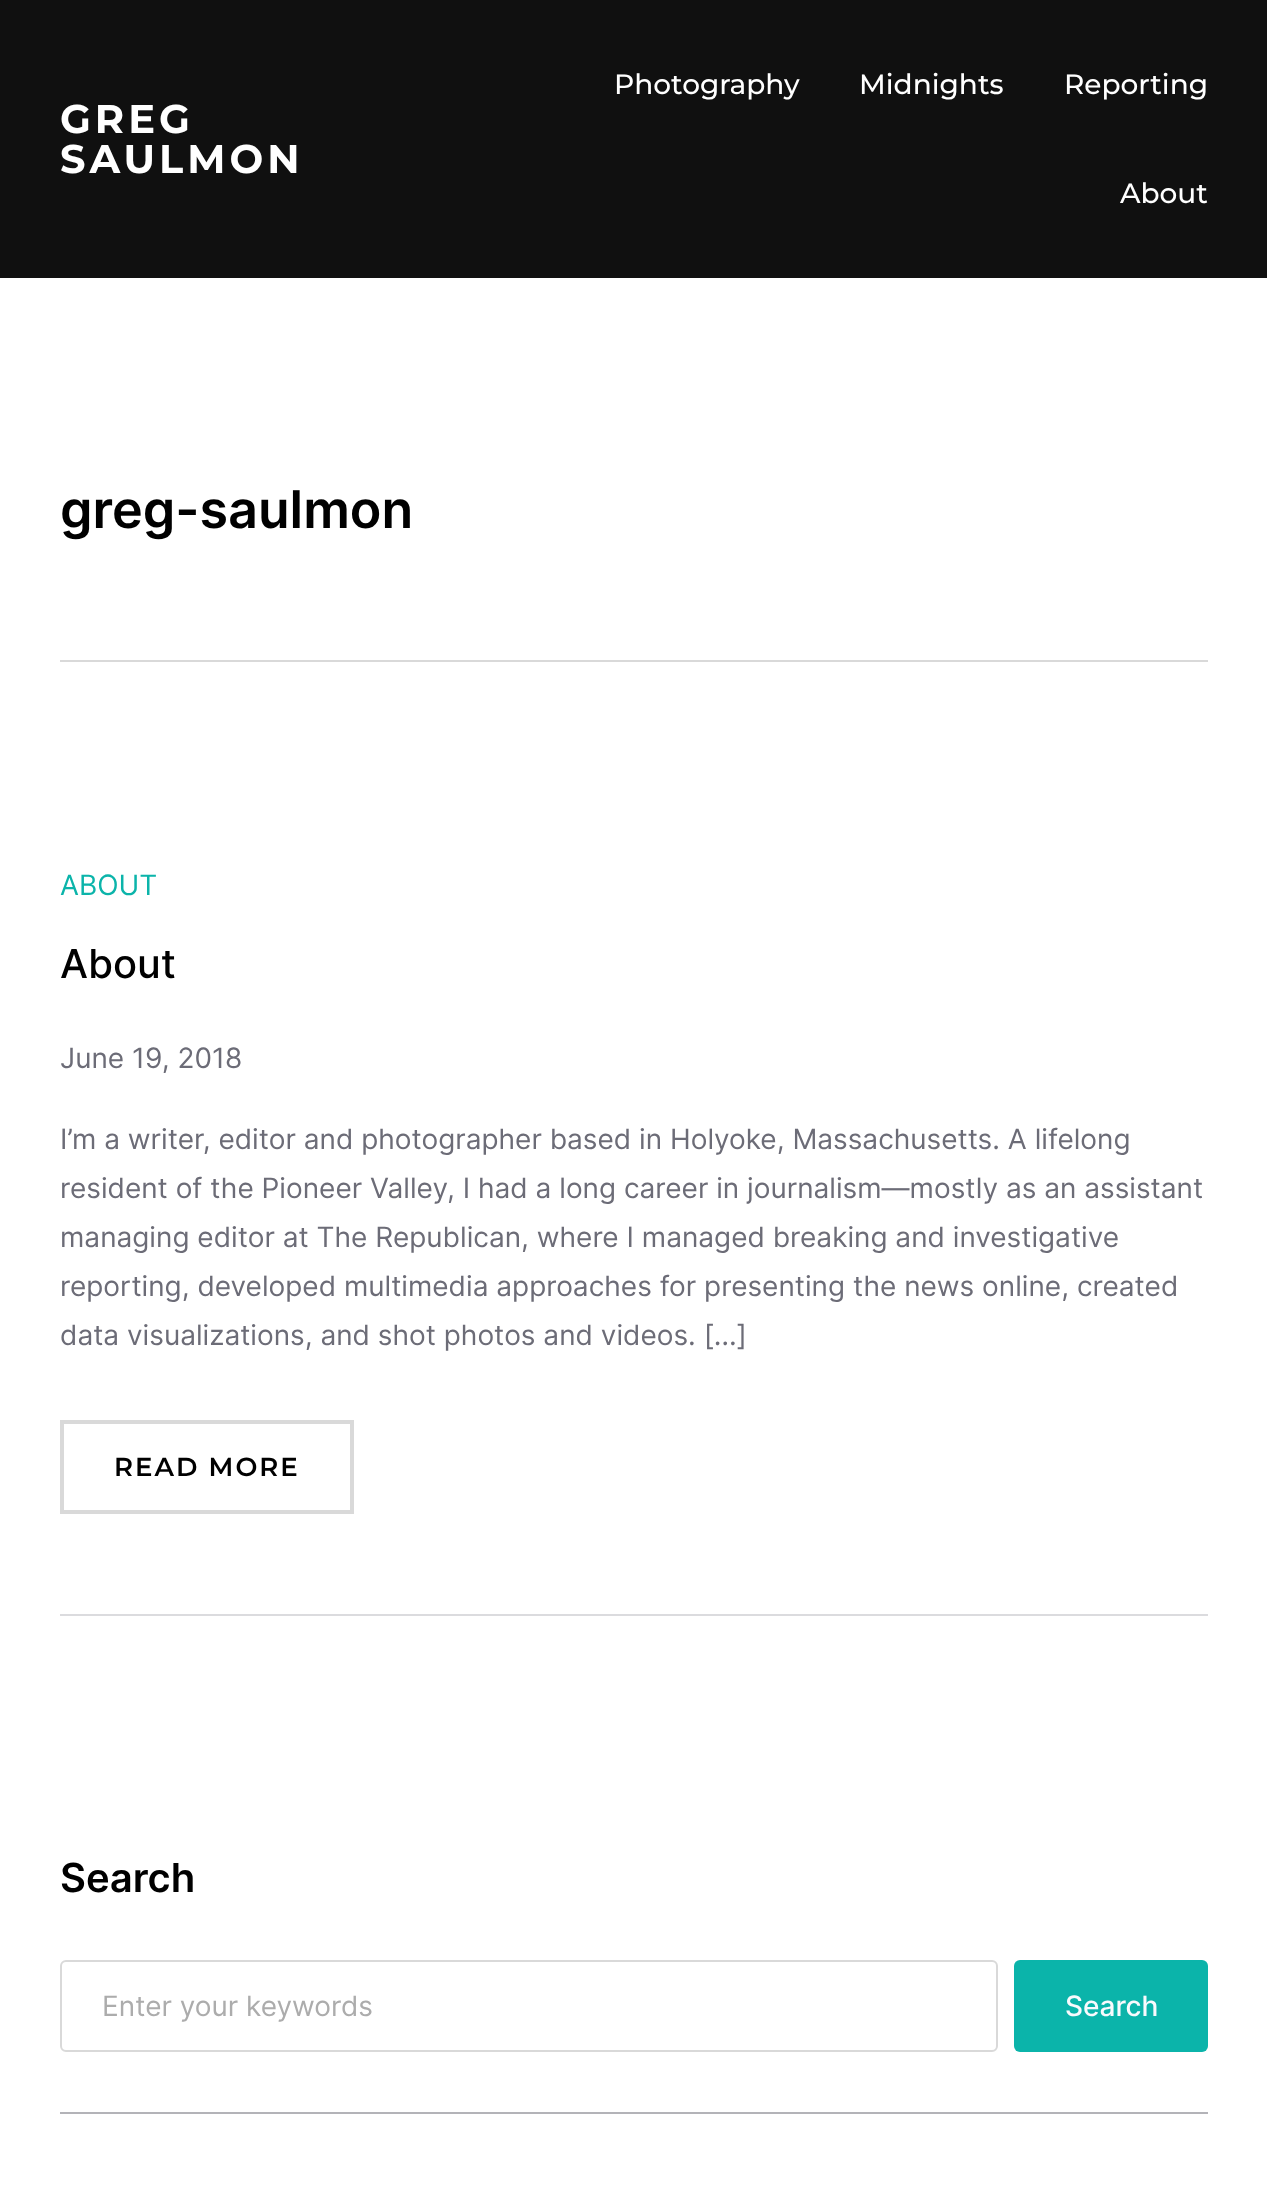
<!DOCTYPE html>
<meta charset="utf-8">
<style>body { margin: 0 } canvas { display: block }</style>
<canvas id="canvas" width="1267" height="2189"></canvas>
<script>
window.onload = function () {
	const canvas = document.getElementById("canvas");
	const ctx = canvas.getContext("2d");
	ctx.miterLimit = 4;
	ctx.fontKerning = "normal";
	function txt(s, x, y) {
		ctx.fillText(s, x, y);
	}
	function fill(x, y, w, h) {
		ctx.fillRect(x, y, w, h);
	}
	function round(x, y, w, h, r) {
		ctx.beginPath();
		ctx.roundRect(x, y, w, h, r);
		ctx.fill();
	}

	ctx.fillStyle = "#FFFFFF";
	fill(0, 0, 1267, 2189);
	ctx.fillStyle = "#101010";
	fill(0, 0, 1267, 278);
	ctx.fillStyle = "#D9D9D9";
	fill(60, 660, 1148, 2);
	ctx.strokeStyle = "#D9D9D9";
	ctx.lineWidth = 4;
	ctx.strokeRect(62, 1422, 290, 90);
	ctx.fillStyle = "#DBDBDE";
	fill(60, 1614, 1148, 2);
	ctx.beginPath();
	ctx.roundRect(61, 1961, 936, 90, 5);
	ctx.lineWidth = 2;
	ctx.stroke();
	ctx.fillStyle = "#0BB4AA";
	round(1014, 1960, 194, 92, 6);
	ctx.fillStyle = "#B3B3B8";
	fill(60, 2112, 1148, 2);
	ctx.letterSpacing = "4px";
	ctx.font = "bold 40px Montserrat";
	ctx.fillStyle = "#FFFFFF";
	txt("GREG", 60, 133);
	txt("SAULMON", 60, 173);
	ctx.letterSpacing = "0px";
	ctx.font = "500 28px Montserrat";
	txt("Photography", 614, 94);
	txt("Midnights", 859, 94);
	txt("Reporting", 1064, 94);
	txt("About", 1120, 203);
	ctx.font = "600 52px Inter";
	ctx.fillStyle = "#000000";
	txt("greg-saulmon", 60, 528);
	ctx.font = "28px Inter";
	ctx.fillStyle = "#0BB4AA";
	txt("ABOUT", 60, 895);
	ctx.font = "500 40px Inter";
	ctx.fillStyle = "#000000";
	txt("About", 60, 978);
	ctx.font = "28px Inter";
	ctx.fillStyle = "#6C6C77";
	txt("June 19, 2018", 60, 1068);
	txt("I’m a writer, editor and photographer based in Holyoke, Massachusetts. A lifelong", 60, 1149);
	txt("resident of the Pioneer Valley, I had a long career in journalism—mostly as an assistant", 60, 1198);
	txt("managing editor at The Republican, where I managed breaking and investigative", 60, 1247);
	txt("reporting, developed multimedia approaches for presenting the news online, created", 60, 1296);
	txt("data visualizations, and shot photos and videos. […]", 60, 1345);
	ctx.letterSpacing = "2px";
	ctx.font = "600 26px Montserrat";
	ctx.fillStyle = "#000000";
	txt("READ MORE", 114, 1476);
	ctx.letterSpacing = "0px";
	ctx.font = "600 40px Inter";
	txt("Search", 60, 1892);
	ctx.font = "28px Inter";
	ctx.fillStyle = "#ACACAC";
	txt("Enter your keywords", 102, 2016);
	ctx.font = "500 28px Inter";
	ctx.fillStyle = "#F9FAFD";
	txt("Search", 1065, 2016);
};
</script>
